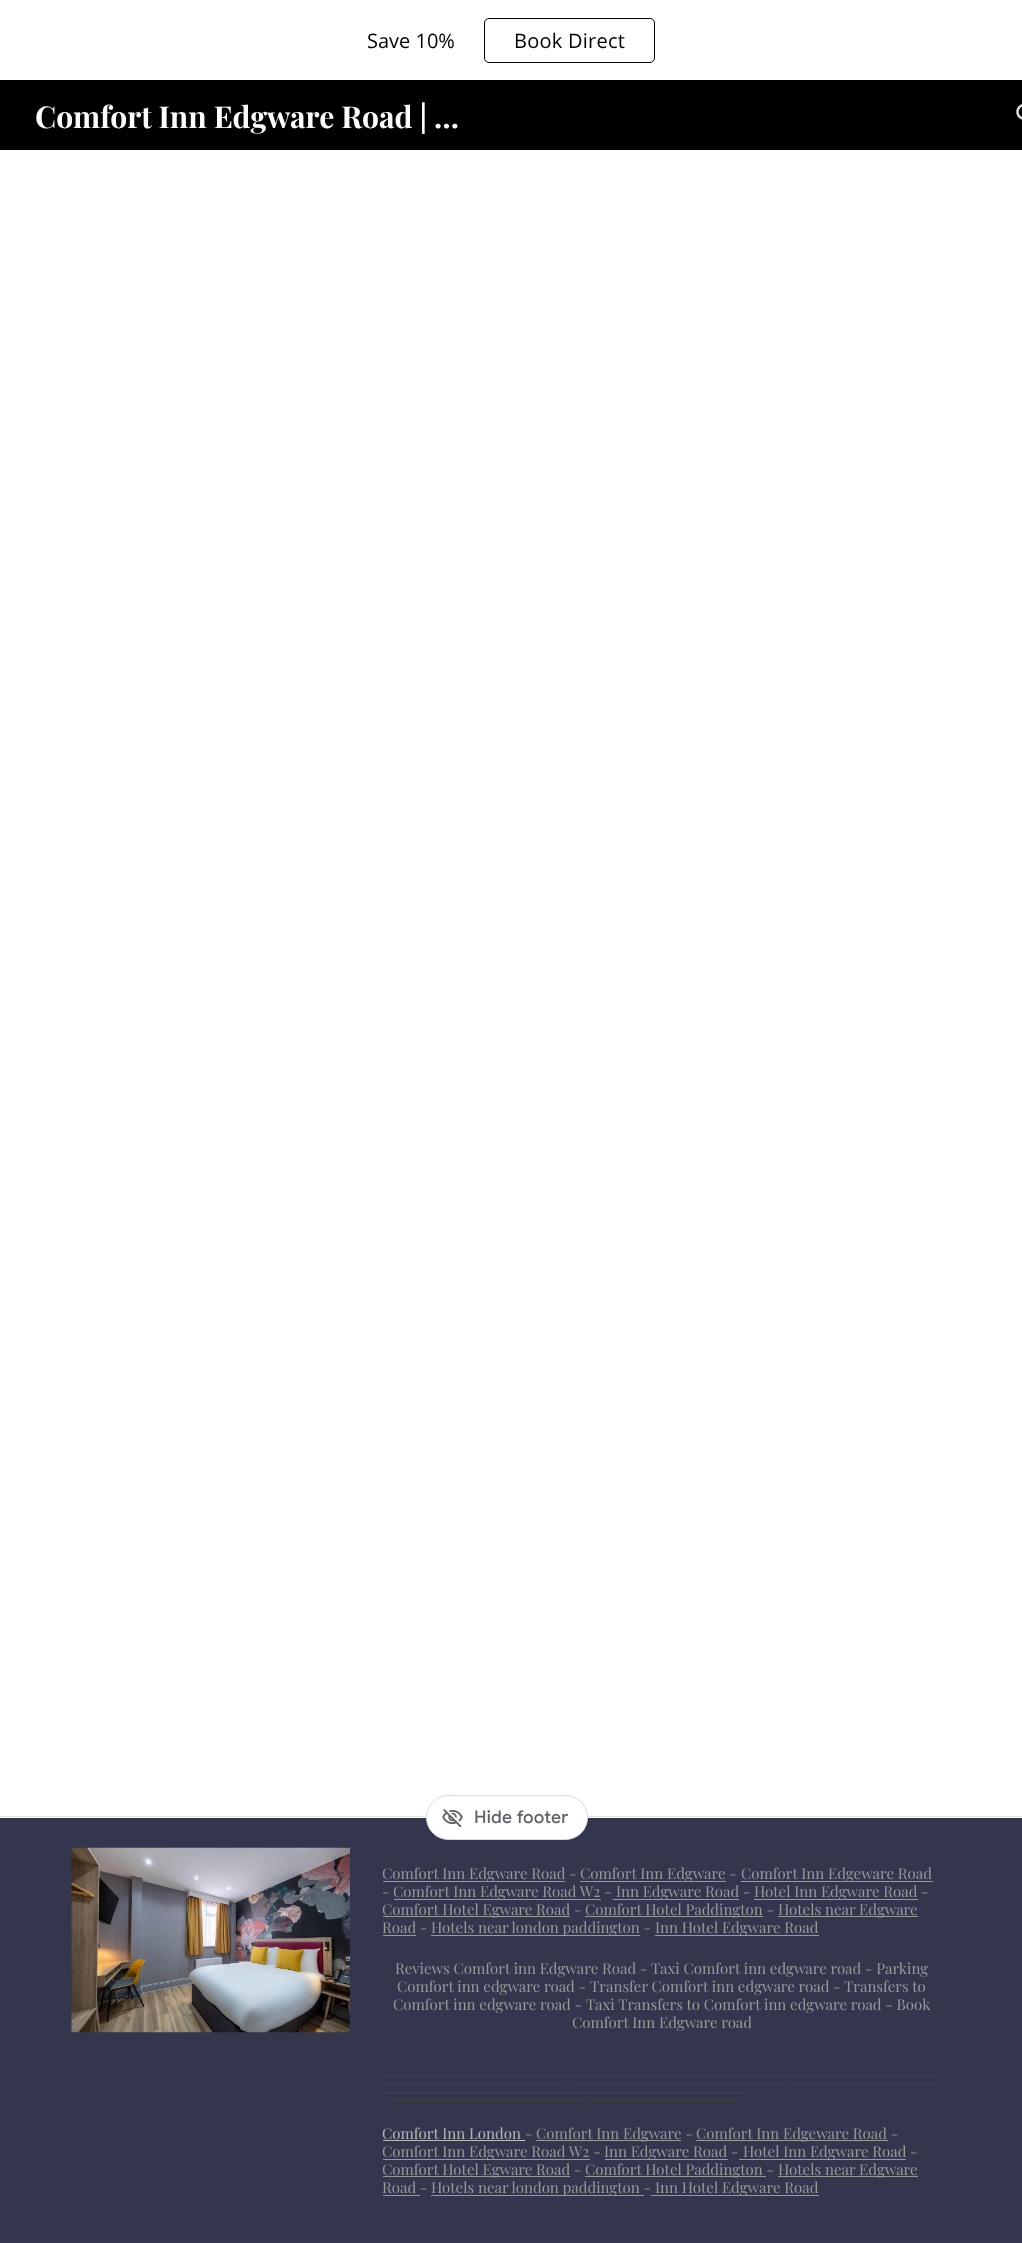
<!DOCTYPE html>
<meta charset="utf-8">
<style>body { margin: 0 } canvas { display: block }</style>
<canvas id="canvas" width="1022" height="2243"></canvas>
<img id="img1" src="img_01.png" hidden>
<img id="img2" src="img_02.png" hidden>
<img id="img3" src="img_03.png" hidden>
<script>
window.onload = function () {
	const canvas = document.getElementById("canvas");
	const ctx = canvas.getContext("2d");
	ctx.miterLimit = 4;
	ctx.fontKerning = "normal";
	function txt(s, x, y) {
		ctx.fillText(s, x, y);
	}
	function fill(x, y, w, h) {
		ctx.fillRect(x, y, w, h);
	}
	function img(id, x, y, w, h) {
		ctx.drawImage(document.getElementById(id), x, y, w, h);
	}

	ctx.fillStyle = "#FFFFFF";
	fill(0, 0, 1022, 2243);
	ctx.beginPath();
	ctx.roundRect(484.5, 18.5, 170, 44, 4.5);
	ctx.strokeStyle = "#000000";
	ctx.stroke();
	ctx.fillStyle = "#000000";
	fill(0, 80, 1022, 70);
	img("img1", 1016, 104, 6, 16);
	ctx.fillStyle = "#E0E0E0";
	fill(0, 1816, 1022, 1);
	ctx.fillStyle = "#33364D";
	fill(0, 1818, 1022, 425);
	ctx.fillStyle = "#FFFFFF";
	ctx.beginPath();
	ctx.roundRect(426.5, 1795.5, 161, 44, 22);
	ctx.fill();
	ctx.strokeStyle = "#DADCE0";
	ctx.stroke();
	img("img2", 442, 1809, 21, 19);
	img("img3", 71, 1847, 279, 186);
	ctx.fillStyle = "#999999";
	fill(383, 1881, 182, 1);
	fill(580, 1881, 146, 1);
	fill(741, 1881, 192, 1);
	fill(394, 1899, 207, 1);
	fill(613, 1899, 126, 1);
	fill(754, 1899, 164, 1);
	fill(383, 1916, 187, 1);
	fill(585, 1916, 178, 1);
	fill(778, 1916, 140, 1);
	fill(383, 1935, 33, 1);
	fill(431, 1935, 209, 1);
	fill(655, 1935, 164, 1);
	ctx.fillStyle = "#434343";
	fill(383, 2075, 548, 1);
	fill(383, 2083, 177, 1);
	fill(575, 2083, 208, 1);
	fill(794, 2083, 137, 1);
	fill(383, 2093, 363, 1);
	fill(394, 2100, 185, 1);
	fill(590, 2100, 145, 1);
	ctx.fillStyle = "#B7B7B7";
	fill(383, 2140, 138, 1);
	ctx.fillStyle = "#C9CEDF";
	fill(521, 2140, 4, 1);
	ctx.fillStyle = "#999999";
	fill(536, 2140, 145, 1);
	fill(696, 2140, 192, 1);
	fill(383, 2159, 207, 1);
	fill(605, 2159, 123, 1);
	fill(739, 2159, 167, 1);
	fill(383, 2176, 187, 1);
	fill(585, 2176, 181, 1);
	fill(778, 2176, 140, 1);
	fill(383, 2195, 37, 1);
	fill(431, 2195, 213, 1);
	fill(651, 2195, 168, 1);
	ctx.font = "20px Open Sans";
	ctx.fillStyle = "#000000";
	txt("Save 10%", 367, 48);
	ctx.letterSpacing = "0.25px";
	txt("Book Direct", 514, 48);
	ctx.letterSpacing = "0px";
	ctx.font = "bold 30px Playfair Display";
	ctx.fillStyle = "#FFFFFF";
	txt("Comfort Inn Edgware Road | …", 35, 128);
	ctx.letterSpacing = "0.25px";
	ctx.font = "500 17.5px Google Sans";
	ctx.fillStyle = "#5F6368";
	txt("Hide footer", 474, 1823);
	ctx.letterSpacing = "0px";
	ctx.font = "15px Playfair Display";
	ctx.fillStyle = "#999999";
	txt("Comfort Inn Edgware Road -", 382, 1879);
	txt("Comfort Inn Edgware -", 580, 1879);
	txt("Comfort Inn Edgeware Road", 741, 1879);
	txt("-", 382, 1897);
	txt("Comfort Inn Edgware Road W2 -", 393, 1897);
	txt("Inn Edgware Road -", 616, 1897);
	txt("Hotel Inn Edgware Road -", 754, 1897);
	txt("Comfort Hotel Egware Road -", 382, 1915);
	txt("Comfort Hotel Paddington -", 585, 1915);
	txt("Hotels near Edgware", 778, 1915);
	txt("Road -", 382, 1933);
	txt("Hotels near london paddington -", 431, 1933);
	txt("Inn Hotel Edgware Road", 655, 1933);
	txt("Reviews Comfort inn Edgware Road -", 395, 1974);
	txt("Taxi Comfort inn edgware road - Parking", 651, 1974);
	txt("Comfort inn edgware road -", 397, 1992);
	txt("Transfer Comfort inn edgware road - Transfers to", 590, 1992);
	txt("Comfort inn edgware road -", 393, 2010);
	txt("Taxi Transfers to Comfort inn edgware road - Book", 586, 2010);
	txt("Comfort Inn Edgware road", 572, 2028);
	ctx.fillStyle = "#B7B7B7";
	txt("Comfort Inn London", 382, 2139);
	ctx.fillStyle = "#999999";
	txt("-", 525, 2139);
	txt("Comfort Inn Edgware -", 536, 2139);
	txt("Comfort Inn Edgeware Road -", 696, 2139);
	txt("Comfort Inn Edgware Road W2 -", 382, 2157);
	txt("Inn Edgware Road -", 604, 2157);
	txt("Hotel Inn Edgware Road -", 743, 2157);
	txt("Comfort Hotel Egware Road -", 382, 2175);
	txt("Comfort Hotel Paddington -", 585, 2175);
	txt("Hotels near Edgware", 778, 2175);
	txt("Road -", 382, 2193);
	txt("Hotels near london paddington -", 431, 2193);
	txt("Inn Hotel Edgware Road", 655, 2193);
};
</script>
